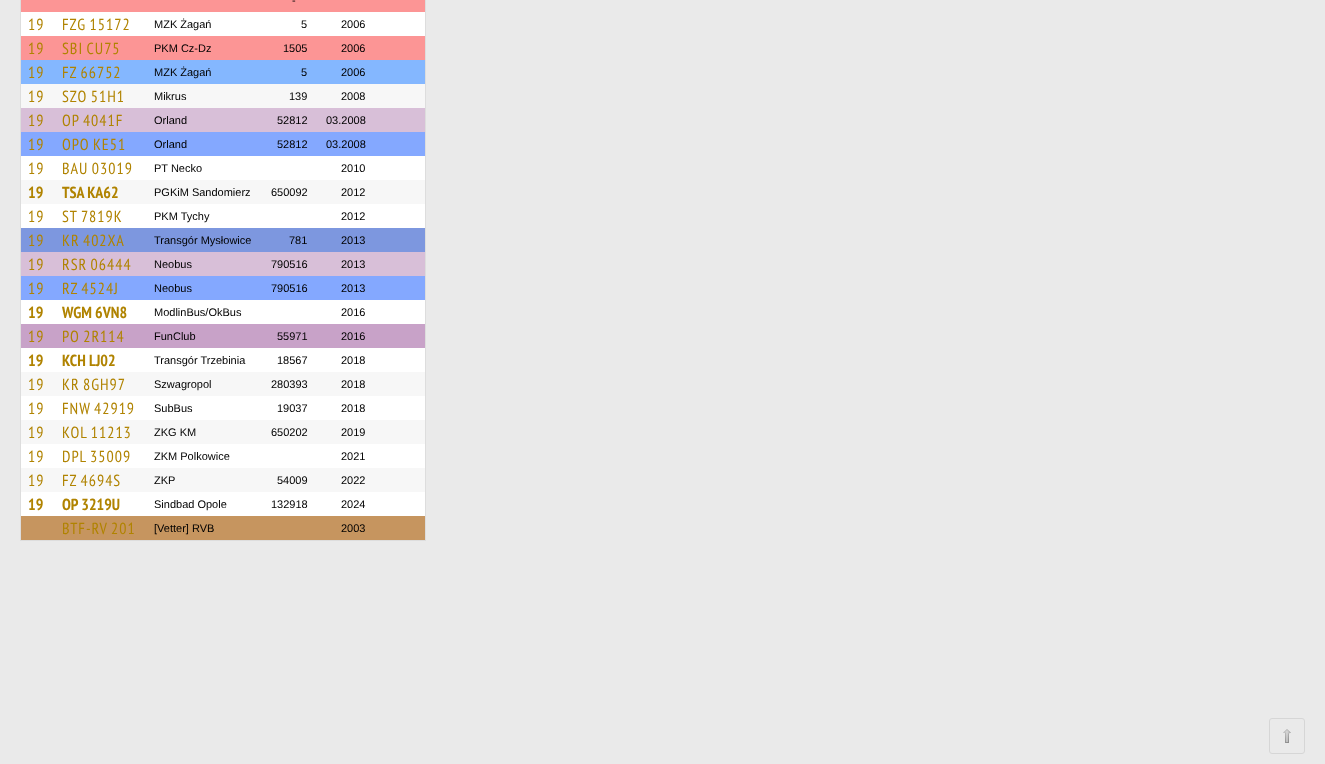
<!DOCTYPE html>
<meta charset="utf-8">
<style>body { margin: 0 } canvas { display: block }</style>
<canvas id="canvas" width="1325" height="764"></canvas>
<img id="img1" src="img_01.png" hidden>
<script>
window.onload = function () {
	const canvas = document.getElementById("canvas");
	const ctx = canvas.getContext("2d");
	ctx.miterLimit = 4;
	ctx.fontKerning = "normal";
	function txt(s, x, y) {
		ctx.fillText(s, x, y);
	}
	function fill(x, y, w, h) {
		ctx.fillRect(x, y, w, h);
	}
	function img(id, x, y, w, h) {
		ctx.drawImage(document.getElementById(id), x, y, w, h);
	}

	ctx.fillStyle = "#EAEAEA";
	fill(0, 0, 1325, 764);
	ctx.fillStyle = "#FFFFFF";
	fill(21, 12, 404, 504);
	ctx.strokeStyle = "#DDDDDD";
	ctx.strokeRect(20.5, -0.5, 405, 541);
	ctx.fillStyle = "#FC9595";
	fill(21, 0, 404, 12);
	fill(21, 36, 404, 24);
	ctx.fillStyle = "#84B7FF";
	fill(21, 60, 404, 24);
	ctx.fillStyle = "#F7F7F7";
	fill(21, 84, 404, 24);
	ctx.fillStyle = "#D8BFD8";
	fill(21, 108, 404, 24);
	ctx.fillStyle = "#84A8FF";
	fill(21, 132, 404, 24);
	ctx.fillStyle = "#F7F7F7";
	fill(21, 180, 404, 24);
	ctx.fillStyle = "#7D97DF";
	fill(21, 228, 404, 24);
	ctx.fillStyle = "#D8BFD8";
	fill(21, 252, 404, 24);
	ctx.fillStyle = "#84A8FF";
	fill(21, 276, 404, 24);
	ctx.fillStyle = "#C8A2C8";
	fill(21, 324, 404, 24);
	ctx.fillStyle = "#F7F7F7";
	fill(21, 372, 404, 24);
	fill(21, 420, 404, 24);
	fill(21, 468, 404, 24);
	ctx.fillStyle = "#C6955F";
	fill(21, 516, 404, 24);
	img("img1", 1283, 729, 8, 14);
	ctx.beginPath();
	ctx.roundRect(1269.5, 718.5, 35, 35, 2.5);
	ctx.strokeStyle = "#D6D6D6";
	ctx.stroke();
	ctx.font = "11px Liberation Sans";
	ctx.fillStyle = "#000000";
	txt("-", 292, 4);
	ctx.letterSpacing = "1px";
	ctx.font = "16px PT Sans Narrow";
	ctx.fillStyle = "#B08300";
	txt("19", 28, 30);
	ctx.wordSpacing = "-1px";
	txt("FZG 15172", 62, 30);
	ctx.letterSpacing = "0px";
	ctx.wordSpacing = "0px";
	ctx.font = "11px Liberation Sans";
	ctx.fillStyle = "#000000";
	txt("MZK Żagań", 154, 28);
	txt("5", 301, 28);
	txt("2006", 341, 28);
	ctx.letterSpacing = "1px";
	ctx.font = "16px PT Sans Narrow";
	ctx.fillStyle = "#B08300";
	txt("19", 28, 54);
	ctx.wordSpacing = "-1px";
	txt("SBI CU75", 62, 54);
	ctx.letterSpacing = "0px";
	ctx.wordSpacing = "0px";
	ctx.font = "11px Liberation Sans";
	ctx.fillStyle = "#000000";
	txt("PKM Cz-Dz", 154, 52);
	txt("1505", 283, 52);
	txt("2006", 341, 52);
	ctx.letterSpacing = "1px";
	ctx.font = "16px PT Sans Narrow";
	ctx.fillStyle = "#B08300";
	txt("19", 28, 78);
	ctx.wordSpacing = "-1px";
	txt("FZ 66752", 62, 78);
	ctx.letterSpacing = "0px";
	ctx.wordSpacing = "0px";
	ctx.font = "11px Liberation Sans";
	ctx.fillStyle = "#000000";
	txt("MZK Żagań", 154, 76);
	txt("5", 301, 76);
	txt("2006", 341, 76);
	ctx.letterSpacing = "1px";
	ctx.font = "16px PT Sans Narrow";
	ctx.fillStyle = "#B08300";
	txt("19", 28, 102);
	ctx.wordSpacing = "-1px";
	txt("SZO 51H1", 62, 102);
	ctx.letterSpacing = "0px";
	ctx.wordSpacing = "0px";
	ctx.font = "11px Liberation Sans";
	ctx.fillStyle = "#000000";
	txt("Mikrus", 154, 100);
	txt("139", 289, 100);
	txt("2008", 341, 100);
	ctx.letterSpacing = "1px";
	ctx.font = "16px PT Sans Narrow";
	ctx.fillStyle = "#B08300";
	txt("19", 28, 126);
	ctx.wordSpacing = "-1px";
	txt("OP 4041F", 62, 126);
	ctx.letterSpacing = "0px";
	ctx.wordSpacing = "0px";
	ctx.font = "11px Liberation Sans";
	ctx.fillStyle = "#000000";
	txt("Orland", 154, 124);
	txt("52812", 277, 124);
	txt("03.2008", 326, 124);
	ctx.letterSpacing = "1px";
	ctx.font = "16px PT Sans Narrow";
	ctx.fillStyle = "#B08300";
	txt("19", 28, 150);
	ctx.wordSpacing = "-1px";
	txt("OPO KE51", 62, 150);
	ctx.letterSpacing = "0px";
	ctx.wordSpacing = "0px";
	ctx.font = "11px Liberation Sans";
	ctx.fillStyle = "#000000";
	txt("Orland", 154, 148);
	txt("52812", 277, 148);
	txt("03.2008", 326, 148);
	ctx.letterSpacing = "1px";
	ctx.font = "16px PT Sans Narrow";
	ctx.fillStyle = "#B08300";
	txt("19", 28, 174);
	ctx.wordSpacing = "-1px";
	txt("BAU 03019", 62, 174);
	ctx.letterSpacing = "0px";
	ctx.wordSpacing = "0px";
	ctx.font = "11px Liberation Sans";
	ctx.fillStyle = "#000000";
	txt("PT Necko", 154, 172);
	txt("2010", 341, 172);
	ctx.font = "bold 16px PT Sans Narrow";
	ctx.fillStyle = "#B08300";
	txt("19", 28, 198);
	txt("TSA KA62", 62, 198);
	ctx.font = "11px Liberation Sans";
	ctx.fillStyle = "#000000";
	txt("PGKiM Sandomierz", 154, 196);
	txt("650092", 271, 196);
	txt("2012", 341, 196);
	ctx.letterSpacing = "1px";
	ctx.font = "16px PT Sans Narrow";
	ctx.fillStyle = "#B08300";
	txt("19", 28, 222);
	ctx.wordSpacing = "-1px";
	txt("ST 7819K", 62, 222);
	ctx.letterSpacing = "0px";
	ctx.wordSpacing = "0px";
	ctx.font = "11px Liberation Sans";
	ctx.fillStyle = "#000000";
	txt("PKM Tychy", 154, 220);
	txt("2012", 341, 220);
	ctx.letterSpacing = "1px";
	ctx.font = "16px PT Sans Narrow";
	ctx.fillStyle = "#B08300";
	txt("19", 28, 246);
	ctx.wordSpacing = "-1px";
	txt("KR 402XA", 62, 246);
	ctx.letterSpacing = "0px";
	ctx.wordSpacing = "0px";
	ctx.font = "11px Liberation Sans";
	ctx.fillStyle = "#000000";
	txt("Transgór Mysłowice", 154, 244);
	txt("781", 289, 244);
	txt("2013", 341, 244);
	ctx.letterSpacing = "1px";
	ctx.font = "16px PT Sans Narrow";
	ctx.fillStyle = "#B08300";
	txt("19", 28, 270);
	ctx.wordSpacing = "-1px";
	txt("RSR 06444", 62, 270);
	ctx.letterSpacing = "0px";
	ctx.wordSpacing = "0px";
	ctx.font = "11px Liberation Sans";
	ctx.fillStyle = "#000000";
	txt("Neobus", 154, 268);
	txt("790516", 271, 268);
	txt("2013", 341, 268);
	ctx.letterSpacing = "1px";
	ctx.font = "16px PT Sans Narrow";
	ctx.fillStyle = "#B08300";
	txt("19", 28, 294);
	ctx.wordSpacing = "-1px";
	txt("RZ 4524J", 62, 294);
	ctx.letterSpacing = "0px";
	ctx.wordSpacing = "0px";
	ctx.font = "11px Liberation Sans";
	ctx.fillStyle = "#000000";
	txt("Neobus", 154, 292);
	txt("790516", 271, 292);
	txt("2013", 341, 292);
	ctx.font = "bold 16px PT Sans Narrow";
	ctx.fillStyle = "#B08300";
	txt("19", 28, 318);
	txt("WGM 6VN8", 62, 318);
	ctx.font = "11px Liberation Sans";
	ctx.fillStyle = "#000000";
	txt("ModlinBus/OkBus", 154, 316);
	txt("2016", 341, 316);
	ctx.letterSpacing = "1px";
	ctx.font = "16px PT Sans Narrow";
	ctx.fillStyle = "#B08300";
	txt("19", 28, 342);
	ctx.wordSpacing = "-1px";
	txt("PO 2R114", 62, 342);
	ctx.letterSpacing = "0px";
	ctx.wordSpacing = "0px";
	ctx.font = "11px Liberation Sans";
	ctx.fillStyle = "#000000";
	txt("FunClub", 154, 340);
	txt("55971", 277, 340);
	txt("2016", 341, 340);
	ctx.font = "bold 16px PT Sans Narrow";
	ctx.fillStyle = "#B08300";
	txt("19", 28, 366);
	txt("KCH LJ02", 62, 366);
	ctx.font = "11px Liberation Sans";
	ctx.fillStyle = "#000000";
	txt("Transgór Trzebinia", 154, 364);
	txt("18567", 277, 364);
	txt("2018", 341, 364);
	ctx.letterSpacing = "1px";
	ctx.font = "16px PT Sans Narrow";
	ctx.fillStyle = "#B08300";
	txt("19", 28, 390);
	ctx.wordSpacing = "-1px";
	txt("KR 8GH97", 62, 390);
	ctx.letterSpacing = "0px";
	ctx.wordSpacing = "0px";
	ctx.font = "11px Liberation Sans";
	ctx.fillStyle = "#000000";
	txt("Szwagropol", 154, 388);
	txt("280393", 271, 388);
	txt("2018", 341, 388);
	ctx.letterSpacing = "1px";
	ctx.font = "16px PT Sans Narrow";
	ctx.fillStyle = "#B08300";
	txt("19", 28, 414);
	ctx.wordSpacing = "-1px";
	txt("FNW 42919", 62, 414);
	ctx.letterSpacing = "0px";
	ctx.wordSpacing = "0px";
	ctx.font = "11px Liberation Sans";
	ctx.fillStyle = "#000000";
	txt("SubBus", 154, 412);
	txt("19037", 277, 412);
	txt("2018", 341, 412);
	ctx.letterSpacing = "1px";
	ctx.font = "16px PT Sans Narrow";
	ctx.fillStyle = "#B08300";
	txt("19", 28, 438);
	ctx.wordSpacing = "-1px";
	txt("KOL 11213", 62, 438);
	ctx.letterSpacing = "0px";
	ctx.wordSpacing = "0px";
	ctx.font = "11px Liberation Sans";
	ctx.fillStyle = "#000000";
	txt("ZKG KM", 154, 436);
	txt("650202", 271, 436);
	txt("2019", 341, 436);
	ctx.letterSpacing = "1px";
	ctx.font = "16px PT Sans Narrow";
	ctx.fillStyle = "#B08300";
	txt("19", 28, 462);
	ctx.wordSpacing = "-1px";
	txt("DPL 35009", 62, 462);
	ctx.letterSpacing = "0px";
	ctx.wordSpacing = "0px";
	ctx.font = "11px Liberation Sans";
	ctx.fillStyle = "#000000";
	txt("ZKM Polkowice", 154, 460);
	txt("2021", 341, 460);
	ctx.letterSpacing = "1px";
	ctx.font = "16px PT Sans Narrow";
	ctx.fillStyle = "#B08300";
	txt("19", 28, 486);
	ctx.wordSpacing = "-1px";
	txt("FZ 4694S", 62, 486);
	ctx.letterSpacing = "0px";
	ctx.wordSpacing = "0px";
	ctx.font = "11px Liberation Sans";
	ctx.fillStyle = "#000000";
	txt("ZKP", 154, 484);
	txt("54009", 277, 484);
	txt("2022", 341, 484);
	ctx.font = "bold 16px PT Sans Narrow";
	ctx.fillStyle = "#B08300";
	txt("19", 28, 510);
	txt("OP 3219U", 62, 510);
	ctx.font = "11px Liberation Sans";
	ctx.fillStyle = "#000000";
	txt("Sindbad Opole", 154, 508);
	txt("132918", 271, 508);
	txt("2024", 341, 508);
	ctx.letterSpacing = "1px";
	ctx.wordSpacing = "-1px";
	ctx.font = "16px PT Sans Narrow";
	ctx.fillStyle = "#B08300";
	txt("BTF-RV 201", 62, 534);
	ctx.letterSpacing = "0px";
	ctx.wordSpacing = "0px";
	ctx.font = "11px Liberation Sans";
	ctx.fillStyle = "#000000";
	txt("[Vetter] RVB", 154, 532);
	txt("2003", 341, 532);
};
</script>
